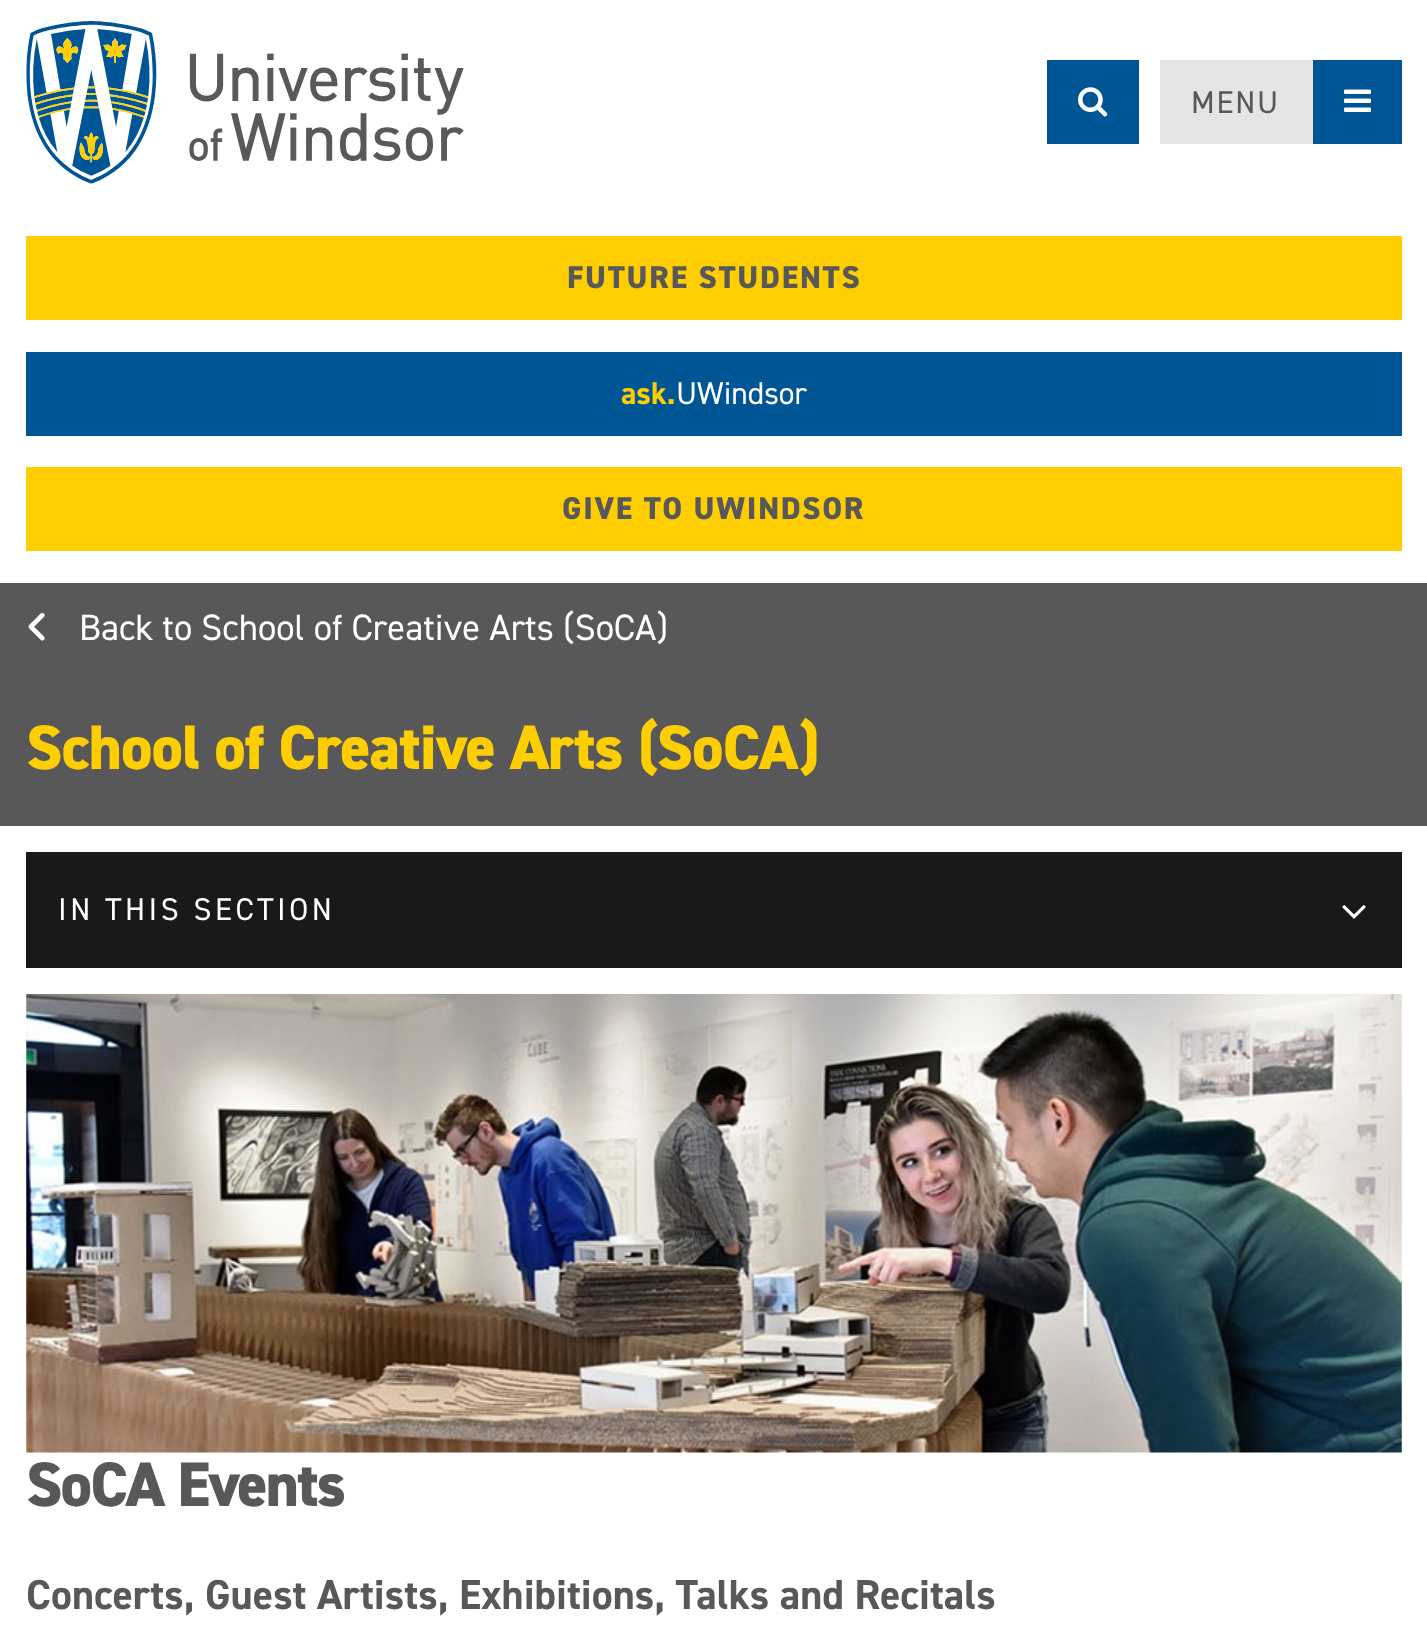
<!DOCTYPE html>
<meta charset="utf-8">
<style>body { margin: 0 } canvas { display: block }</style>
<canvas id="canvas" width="1427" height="1633"></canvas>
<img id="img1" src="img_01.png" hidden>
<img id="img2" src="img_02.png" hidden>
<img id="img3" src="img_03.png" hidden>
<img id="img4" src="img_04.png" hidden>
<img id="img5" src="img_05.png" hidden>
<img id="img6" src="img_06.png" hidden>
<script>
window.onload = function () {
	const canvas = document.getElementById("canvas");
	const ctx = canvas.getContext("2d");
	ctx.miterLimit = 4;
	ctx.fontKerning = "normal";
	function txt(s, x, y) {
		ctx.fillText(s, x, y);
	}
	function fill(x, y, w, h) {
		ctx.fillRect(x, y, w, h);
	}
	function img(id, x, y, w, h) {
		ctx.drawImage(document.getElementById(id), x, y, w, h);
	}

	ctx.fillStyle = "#FFFFFF";
	fill(0, 0, 1427, 1633);
	img("img1", 26, 21, 438, 163);
	ctx.fillStyle = "#005595";
	fill(1047, 60, 92, 84);
	img("img2", 1078, 87, 30, 30);
	ctx.fillStyle = "#E5E5E5";
	fill(1160, 60, 153, 84);
	ctx.fillStyle = "#005595";
	fill(1313, 60, 89, 84);
	img("img3", 1344, 89, 27, 23);
	ctx.fillStyle = "#FFCE00";
	fill(26, 236, 1376, 84);
	ctx.fillStyle = "#005595";
	fill(26, 352, 1376, 84);
	ctx.fillStyle = "#FFCE00";
	fill(26, 467, 1376, 84);
	ctx.fillStyle = "#58585B";
	fill(0, 583, 1427, 243);
	img("img4", 28, 613, 17, 28);
	ctx.fillStyle = "#19191A";
	fill(26, 852, 1376, 116);
	img("img5", 1342, 905, 24, 14);
	img("img6", 26, 994, 1376, 459);
	ctx.letterSpacing = "1.75px";
	ctx.font = "31.5px 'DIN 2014'";
	ctx.fillStyle = "#58585B";
	txt("MENU", 1191, 113);
	ctx.font = "800 31.5px 'DIN 2014'";
	txt("FUTURE STUDENTS", 567, 288);
	ctx.letterSpacing = "0px";
	ctx.font = "bold 31.5px 'DIN 2014'";
	ctx.fillStyle = "#FFCE00";
	txt("ask.", 621, 404);
	ctx.font = "31.5px 'DIN 2014'";
	ctx.fillStyle = "#FFFFFF";
	txt("UWindsor", 676, 404);
	ctx.letterSpacing = "1.75px";
	ctx.font = "800 31.5px 'DIN 2014'";
	ctx.fillStyle = "#58585B";
	txt("GIVE TO UWINDSOR", 562, 519);
	ctx.letterSpacing = "0px";
	ctx.font = "36.75px 'DIN 2014'";
	ctx.fillStyle = "#FFFFFF";
	txt("Back to School of Creative Arts (SoCA)", 79, 640);
	ctx.letterSpacing = "-0.9px";
	ctx.font = "800 63px 'DIN 2014'";
	ctx.fillStyle = "#FFCE00";
	txt("School of Creative Arts (SoCA)", 26, 769);
	ctx.letterSpacing = "3.5px";
	ctx.font = "31.5px 'DIN 2014'";
	ctx.fillStyle = "#FFFFFF";
	txt("IN THIS SECTION", 58, 920);
	ctx.letterSpacing = "-1.75px";
	ctx.font = "800 63px 'DIN 2014'";
	ctx.fillStyle = "#58585B";
	txt("SoCA Events", 26, 1506);
	ctx.letterSpacing = "0px";
	ctx.font = "bold 42px 'DIN 2014'";
	txt("Concerts, Guest Artists, Exhibitions, Talks and Recitals", 26, 1609);
};
</script>
